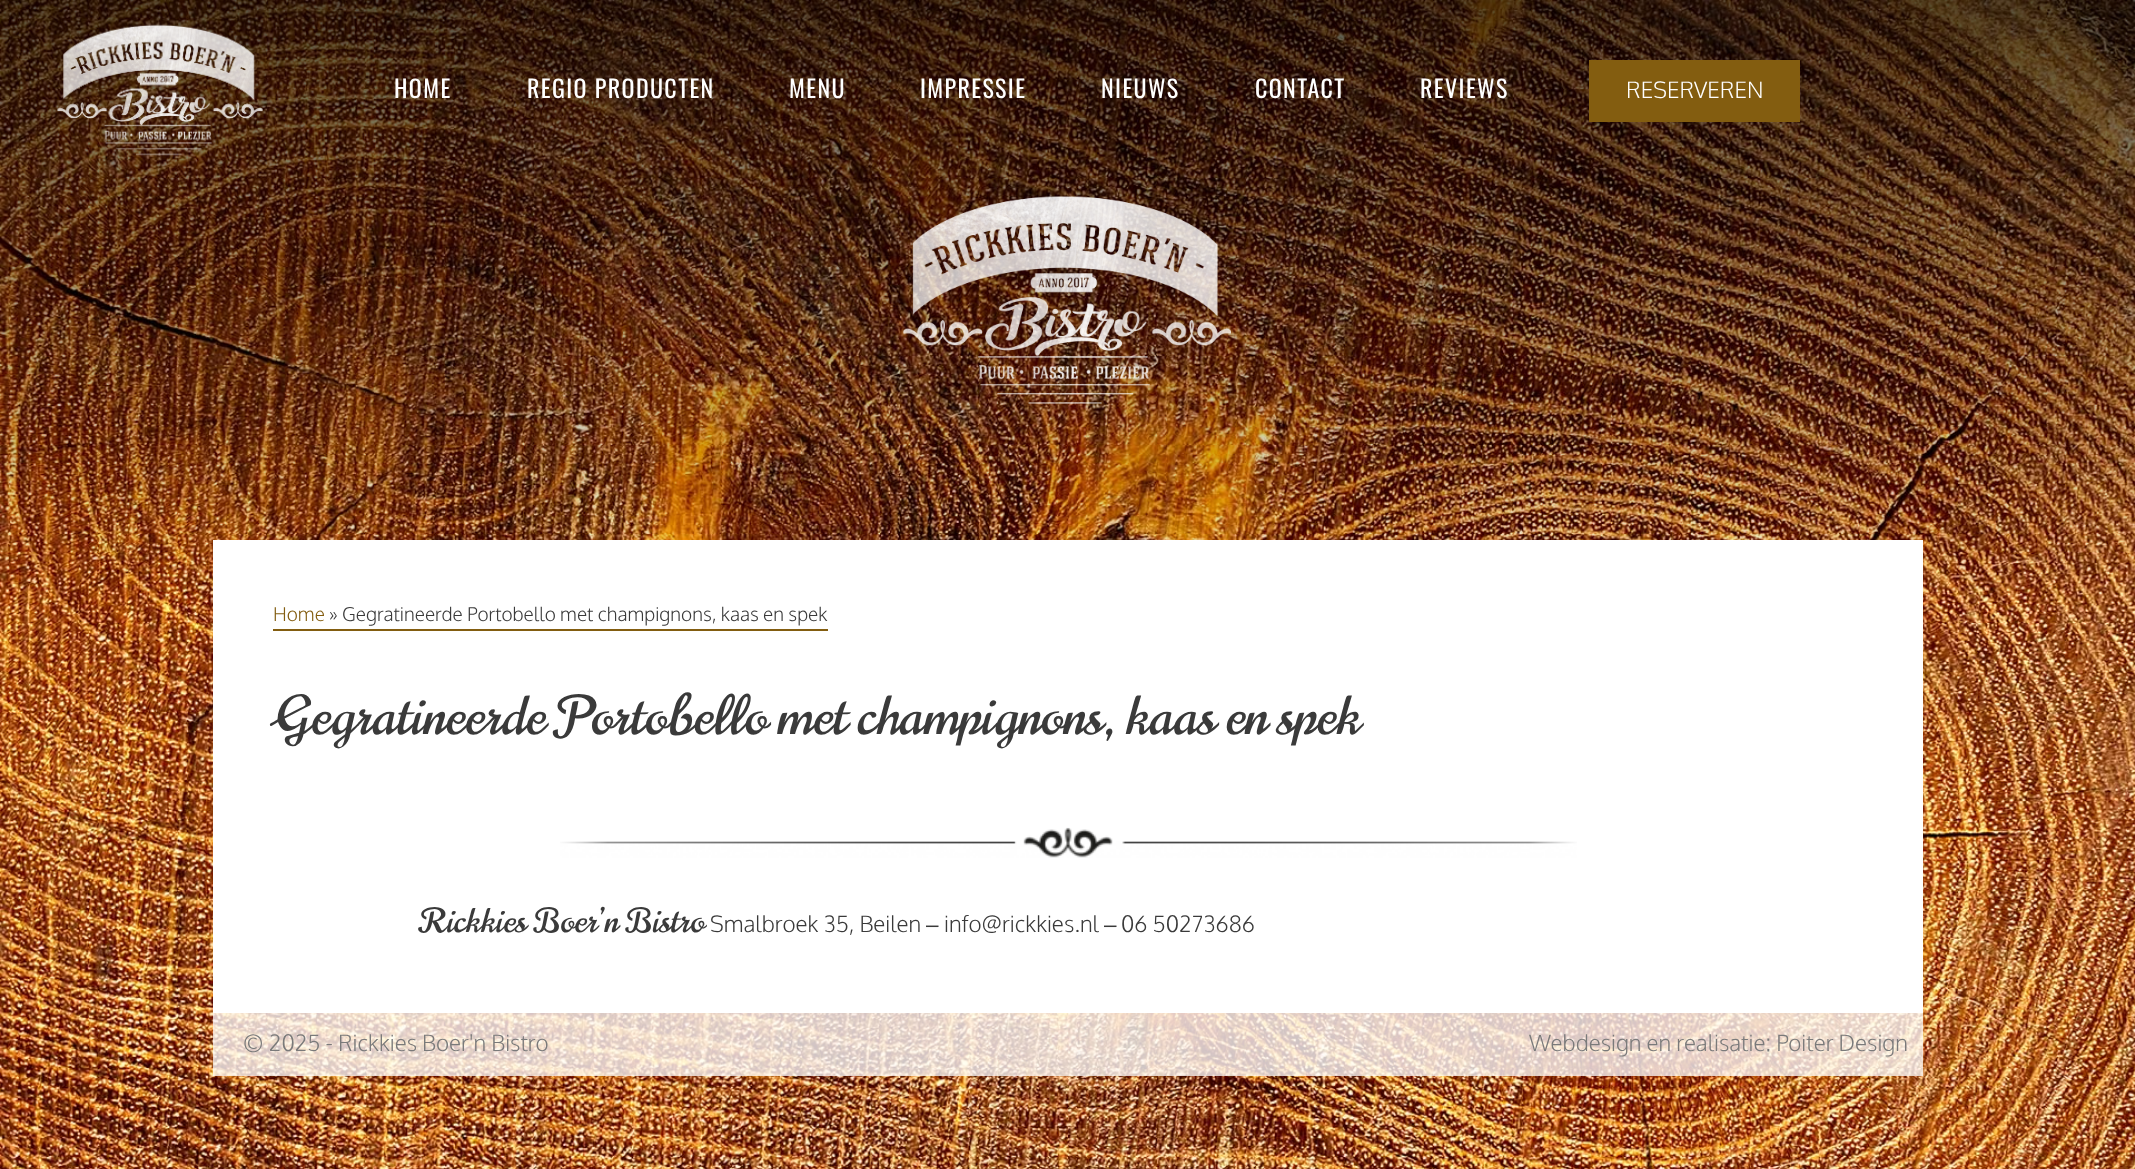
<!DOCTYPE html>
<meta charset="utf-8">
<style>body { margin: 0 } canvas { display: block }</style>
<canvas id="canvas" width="2135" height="1169"></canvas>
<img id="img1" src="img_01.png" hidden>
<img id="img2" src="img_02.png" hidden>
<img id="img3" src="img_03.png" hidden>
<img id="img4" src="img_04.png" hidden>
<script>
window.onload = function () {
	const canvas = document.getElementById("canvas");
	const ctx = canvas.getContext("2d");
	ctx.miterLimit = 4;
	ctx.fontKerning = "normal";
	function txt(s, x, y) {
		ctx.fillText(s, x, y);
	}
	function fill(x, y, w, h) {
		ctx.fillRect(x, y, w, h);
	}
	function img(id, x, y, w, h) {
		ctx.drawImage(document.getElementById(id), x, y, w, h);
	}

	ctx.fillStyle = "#FFFFFF";
	fill(0, 0, 2135, 1169);
	img("img1", 0, 0, 2135, 1169);
	img("img2", 57, 24, 206, 132);
	ctx.fillStyle = "#835D10";
	fill(1589, 60, 211, 62);
	img("img3", 903, 196, 328, 208);
	ctx.fillStyle = "#FFFFFF";
	fill(213, 540, 1710, 473);
	ctx.fillStyle = "#835D10";
	fill(273, 629, 555, 2);
	img("img4", 560, 827, 1017, 31);
	ctx.fillStyle = "rgba(255, 255, 255, 0.77)";
	fill(213, 1013, 855, 63);
	fill(1068, 1013, 855, 63);
	ctx.letterSpacing = "1.4px";
	ctx.font = "24px Oswald";
	ctx.fillStyle = "#FFFFFF";
	txt("HOME", 394, 98);
	txt("REGIO PRODUCTEN", 527, 98);
	txt("MENU", 789, 98);
	txt("IMPRESSIE", 920, 98);
	txt("NIEUWS", 1101, 98);
	txt("CONTACT", 1255, 98);
	txt("REVIEWS", 1420, 98);
	ctx.letterSpacing = "0px";
	ctx.font = "300 22.5px Oxygen";
	txt("RESERVEREN", 1626, 98);
	ctx.font = "300 19.1px Oxygen";
	ctx.fillStyle = "#835D10";
	txt("Home", 273, 621);
	ctx.fillStyle = "#3A3A3A";
	txt("» Gegratineerde Portobello met champignons, kaas en spek", 329, 621);
	ctx.font = "54px Norican";
	txt("Gegratineerde Portobello met champignons, kaas en spek", 273, 734);
	ctx.font = "33.75px Norican";
	txt("Rickkies Boer’n Bistro", 420, 932);
	ctx.font = "300 22.5px Oxygen";
	txt("Smalbroek 35, Beilen", 710, 932);
	ctx.font = "22.5px Liberation Sans";
	txt("–", 926, 932);
	ctx.font = "300 22.5px Oxygen";
	txt("info@rickkies.nl", 944, 932);
	ctx.font = "22.5px Liberation Sans";
	txt("–", 1104, 932);
	ctx.font = "300 22.5px Oxygen";
	txt("06 50273686", 1121, 932);
	ctx.fillStyle = "#7A7A7A";
	txt("© 2025 - Rickkies Boer'n Bistro", 243, 1051);
	txt("Webdesign en realisatie: Poiter Design", 1529, 1051);
};
</script>
